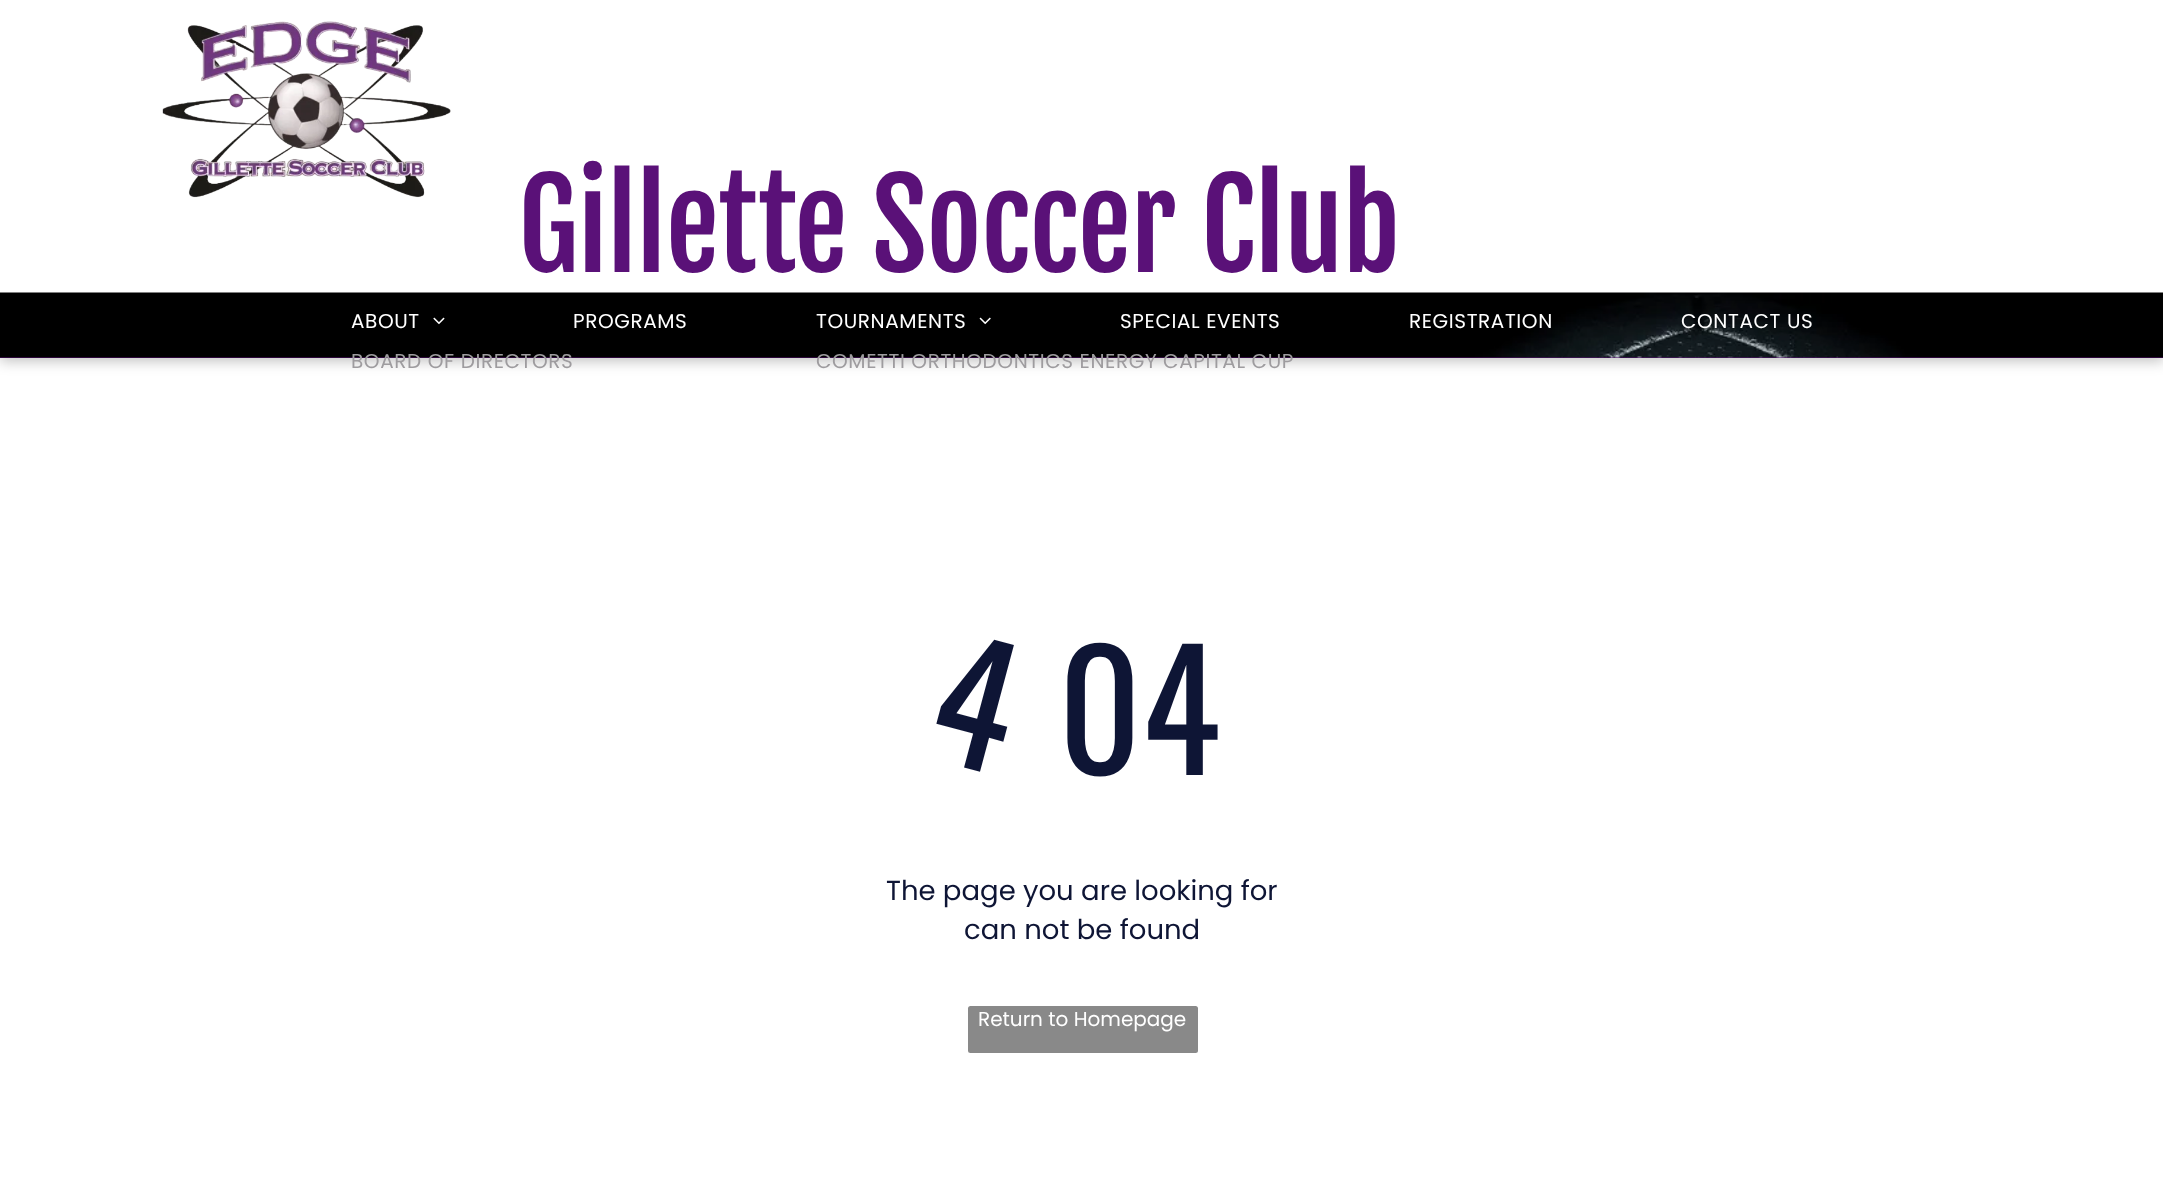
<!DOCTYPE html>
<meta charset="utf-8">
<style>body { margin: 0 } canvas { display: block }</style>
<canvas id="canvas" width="2163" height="1204"></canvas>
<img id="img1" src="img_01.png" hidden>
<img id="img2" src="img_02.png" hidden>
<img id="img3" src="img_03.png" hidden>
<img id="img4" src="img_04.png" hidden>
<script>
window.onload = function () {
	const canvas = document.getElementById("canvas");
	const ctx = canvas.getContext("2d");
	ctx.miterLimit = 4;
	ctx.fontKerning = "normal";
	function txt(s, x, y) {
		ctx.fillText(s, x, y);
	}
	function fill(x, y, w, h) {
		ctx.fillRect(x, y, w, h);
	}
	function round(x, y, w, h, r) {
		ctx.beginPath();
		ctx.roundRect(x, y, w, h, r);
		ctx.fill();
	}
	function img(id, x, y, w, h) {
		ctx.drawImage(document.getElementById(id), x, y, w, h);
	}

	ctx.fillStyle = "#FFFFFF";
	fill(0, 0, 2163, 1204);
	ctx.fillStyle = "rgba(0, 0, 0, 0.25)";
	ctx.filter = "blur(7px)";
	ctx.beginPath();
	ctx.rect(0, -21, 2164, 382);
	ctx.fill();
	ctx.filter = "none";
	ctx.fillStyle = "#FFFFFF";
	fill(0, 0, 2163, 293);
	img("img1", 162, 21, 289, 177);
	ctx.fillStyle = "#5A1178";
	fill(0, 357, 2163, 1);
	img("img2", 0, 292, 2163, 66);
	img("img3", 433, 317, 12, 8);
	img("img4", 979, 317, 12, 8);
	ctx.fillStyle = "#898989";
	round(968, 1006, 230, 47, 2.5);
	ctx.letterSpacing = "-0.75px";
	ctx.font = "120px Fjalla One";
	ctx.fillStyle = "#5A1178";
	txt("Gillette Soccer Club", 518, 272);
	ctx.letterSpacing = "0.6px";
	ctx.font = "20px Poppins";
	ctx.fillStyle = "#FFFFFF";
	txt("ABOUT", 351, 328);
	ctx.fillStyle = "#9E9C9F";
	txt("BOARD OF DIRECTORS", 351, 368);
	ctx.fillStyle = "#FFFFFF";
	txt("PROGRAMS", 573, 328);
	txt("TOURNAMENTS", 816, 328);
	ctx.fillStyle = "#9E9C9F";
	txt("COMETTI ORTHODONTICS ENERGY CAPITAL CUP", 816, 368);
	ctx.fillStyle = "#FFFFFF";
	txt("SPECIAL EVENTS", 1120, 328);
	txt("REGISTRATION", 1409, 328);
	txt("CONTACT US", 1681, 328);
	ctx.letterSpacing = "0px";
	ctx.font = "162px Oswald";
	ctx.fillStyle = "#0E1535";
	ctx.save();
	ctx.translate(921, 756);
	ctx.rotate(15 * Math.PI / 180);
	ctx.fillText("4", 0, 0);
	ctx.restore();
	txt("04", 1058, 775);
	ctx.font = "27.5px Poppins";
	txt("The page you are looking for", 886, 900);
	txt("can not be found", 964, 939);
	ctx.font = "20px Poppins";
	ctx.fillStyle = "#FFFFFF";
	txt("Return to Homepage", 978, 1026);
};
</script>
